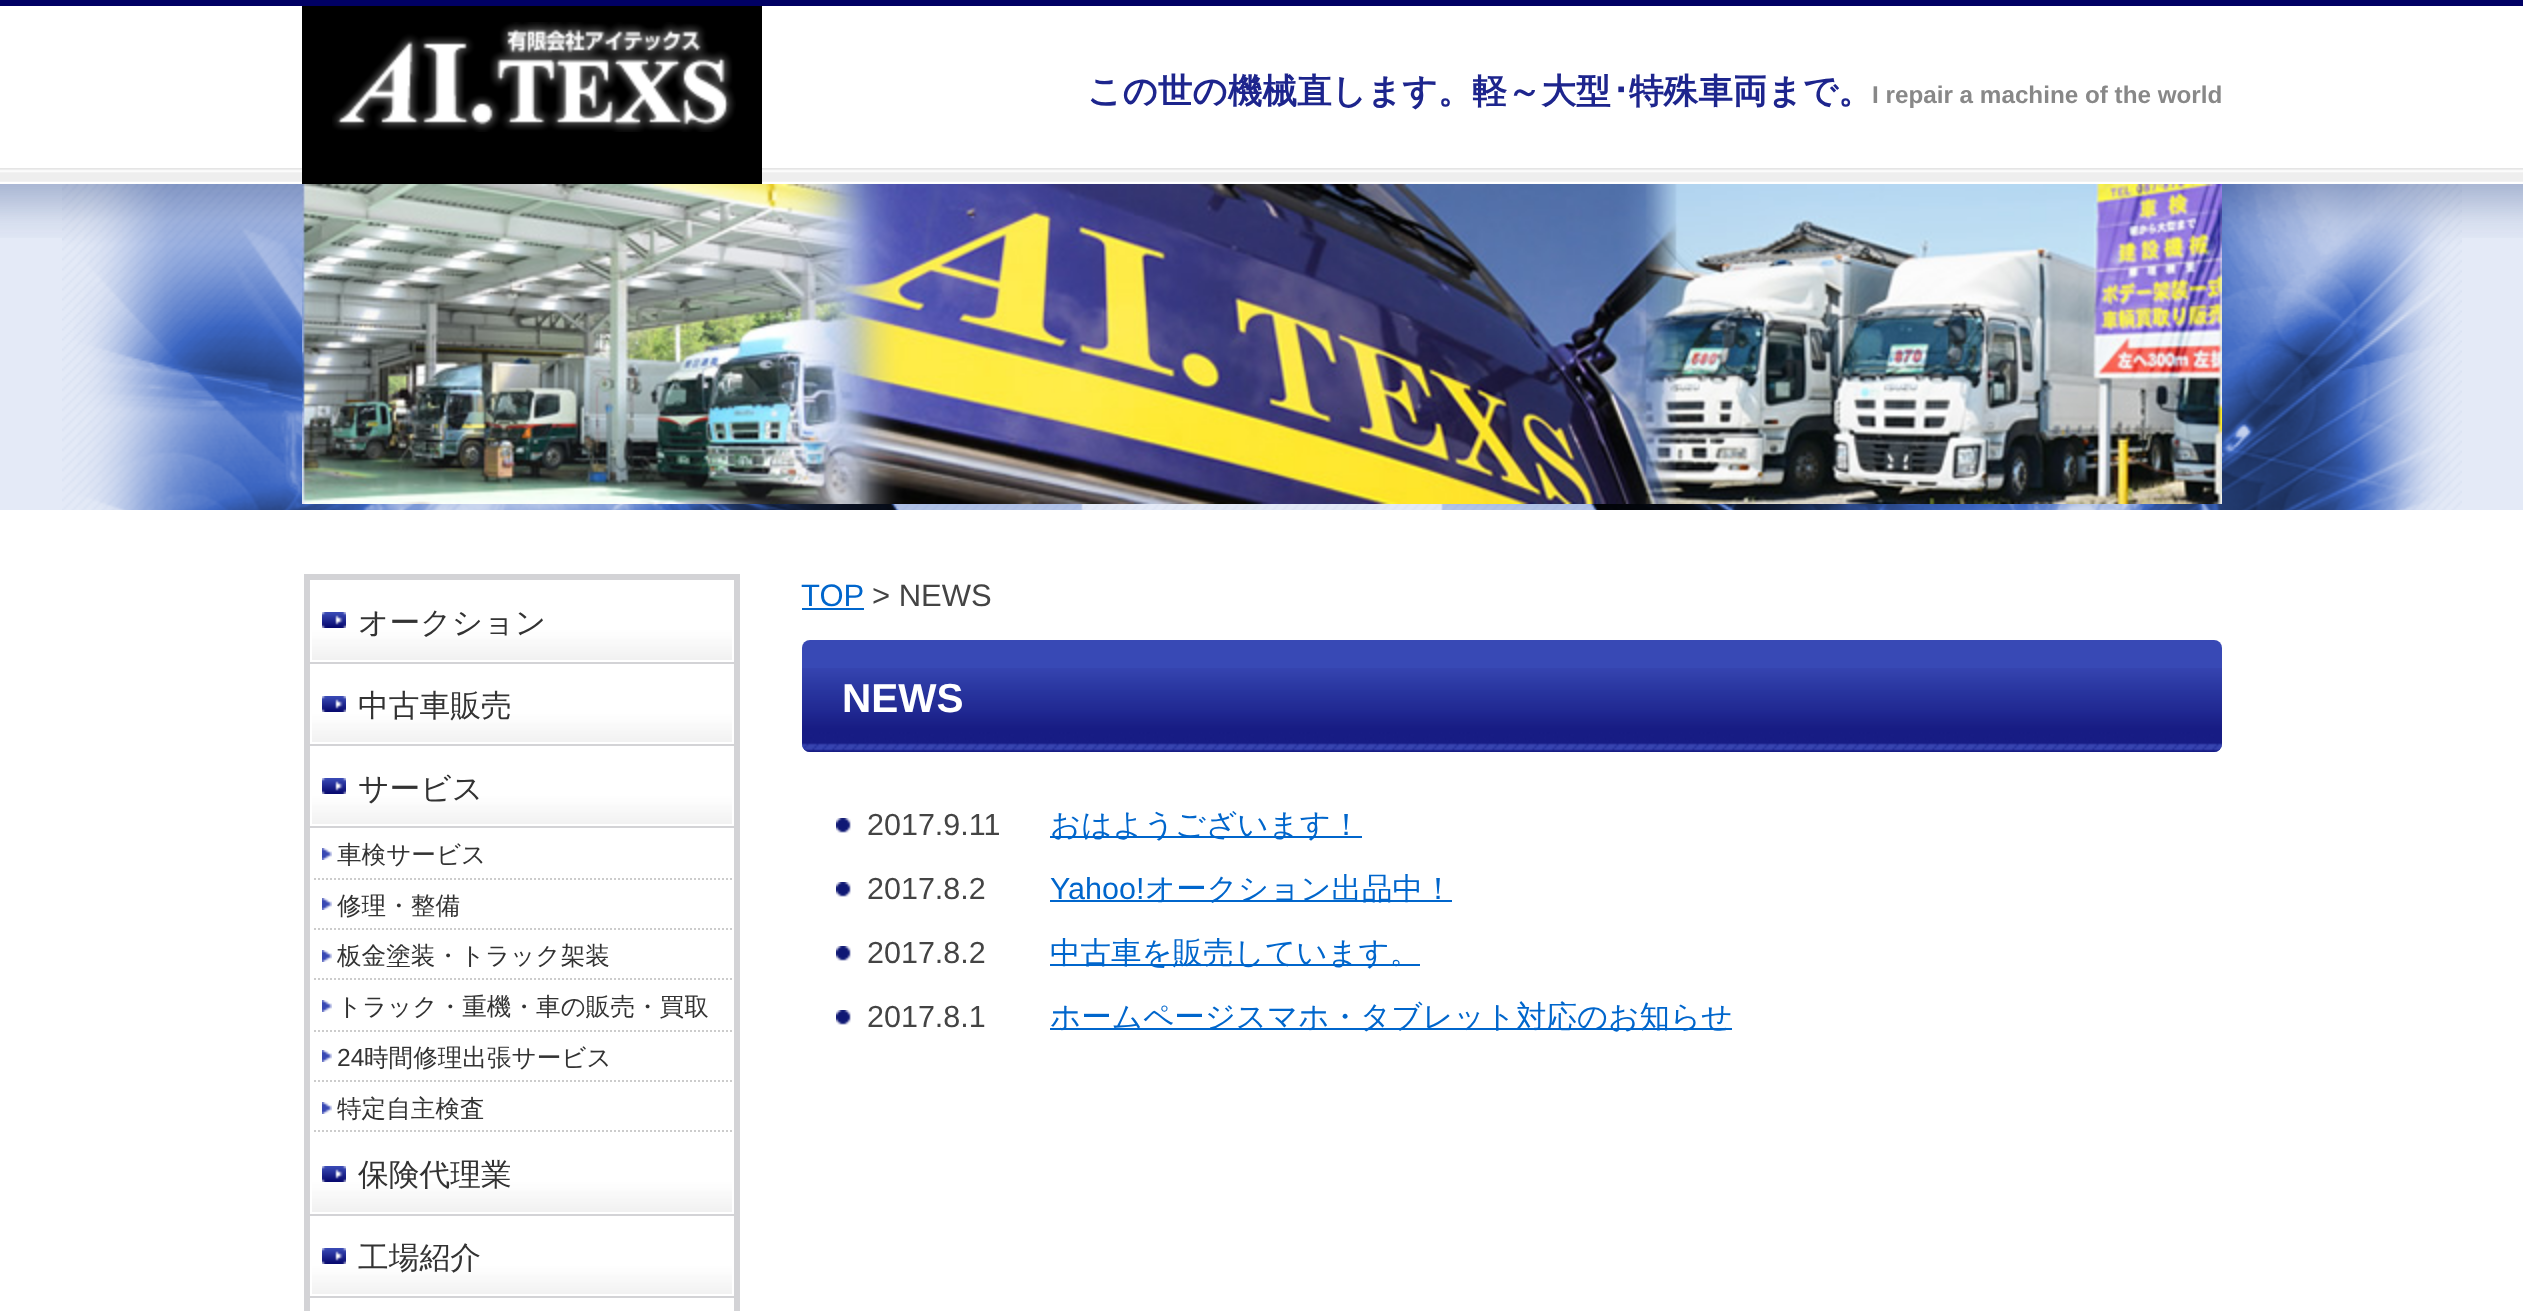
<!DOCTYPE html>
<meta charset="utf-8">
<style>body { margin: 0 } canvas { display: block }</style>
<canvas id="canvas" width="2523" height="1311"></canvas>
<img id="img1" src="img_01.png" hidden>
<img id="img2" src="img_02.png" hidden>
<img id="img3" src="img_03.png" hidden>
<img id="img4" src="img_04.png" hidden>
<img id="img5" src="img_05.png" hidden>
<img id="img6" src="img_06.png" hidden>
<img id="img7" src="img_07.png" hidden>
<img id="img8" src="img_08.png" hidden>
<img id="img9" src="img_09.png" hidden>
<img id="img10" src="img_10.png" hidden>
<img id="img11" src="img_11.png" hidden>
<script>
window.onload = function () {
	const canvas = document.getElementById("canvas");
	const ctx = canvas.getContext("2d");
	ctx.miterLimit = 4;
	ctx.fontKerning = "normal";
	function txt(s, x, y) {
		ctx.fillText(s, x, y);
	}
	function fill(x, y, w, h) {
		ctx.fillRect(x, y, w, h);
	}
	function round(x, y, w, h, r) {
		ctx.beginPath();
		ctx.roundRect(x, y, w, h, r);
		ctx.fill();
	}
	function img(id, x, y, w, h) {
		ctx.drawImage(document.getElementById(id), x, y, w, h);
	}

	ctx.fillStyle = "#FFFFFF";
	fill(0, 0, 2523, 1311);
	img("img1", 0, 168, 2523, 14);
	ctx.fillStyle = "#000064";
	fill(0, 0, 2523, 6);
	ctx.fillStyle = "#000000";
	fill(302, 6, 460, 178);
	img("img2", 332, 22, 404, 110);
	ctx.fillStyle = "#E4EAF7";
	fill(0, 184, 2523, 326);
	img("img3", 0, 184, 2523, 54);
	img("img4", 62, 184, 2400, 326);
	img("img5", 302, 184, 1920, 320);
	ctx.fillStyle = "#D3D3D6";
	fill(304, 574, 436, 737);
	img("img6", 312, 582, 420, 78);
	ctx.strokeStyle = "#FFFFFF";
	ctx.lineWidth = 2;
	ctx.strokeRect(311, 581, 422, 80);
	img("img7", 322, 612, 24, 16);
	img("img8", 312, 666, 420, 76);
	ctx.strokeRect(311, 665, 422, 78);
	img("img7", 322, 696, 24, 16);
	img("img8", 312, 748, 420, 76);
	ctx.strokeRect(311, 747, 422, 78);
	img("img7", 322, 778, 24, 16);
	ctx.fillStyle = "#FFFFFF";
	fill(312, 828, 422, 304);
	ctx.beginPath();
	ctx.moveTo(310, 879);
	ctx.lineTo(734, 879);
	ctx.strokeStyle = "#CCCCCC";
	ctx.setLineDash([2, 2]);
	ctx.stroke();
	fill(310, 828, 2, 52);
	img("img9", 322, 848, 10, 12);
	ctx.beginPath();
	ctx.moveTo(310, 929);
	ctx.lineTo(734, 929);
	ctx.stroke();
	fill(310, 880, 2, 50);
	img("img9", 322, 898, 10, 12);
	ctx.beginPath();
	ctx.moveTo(310, 979);
	ctx.lineTo(734, 979);
	ctx.stroke();
	fill(310, 930, 2, 50);
	img("img9", 322, 950, 10, 12);
	ctx.beginPath();
	ctx.moveTo(310, 1031);
	ctx.lineTo(734, 1031);
	ctx.stroke();
	fill(310, 980, 2, 52);
	img("img9", 322, 1000, 10, 12);
	ctx.beginPath();
	ctx.moveTo(310, 1081);
	ctx.lineTo(734, 1081);
	ctx.stroke();
	fill(310, 1032, 2, 50);
	img("img9", 322, 1050, 10, 12);
	ctx.beginPath();
	ctx.moveTo(310, 1131);
	ctx.lineTo(734, 1131);
	ctx.stroke();
	fill(310, 1082, 2, 50);
	img("img9", 322, 1102, 10, 12);
	img("img6", 312, 1134, 420, 78);
	ctx.strokeStyle = "#FFFFFF";
	ctx.setLineDash([]);
	ctx.strokeRect(311, 1133, 422, 80);
	img("img7", 322, 1166, 24, 16);
	img("img8", 312, 1218, 420, 76);
	ctx.strokeRect(311, 1217, 422, 78);
	img("img7", 322, 1248, 24, 16);
	ctx.beginPath();
	ctx.rect(311, 1299, 422, 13);
	ctx.fill();
	ctx.stroke();
	ctx.fillStyle = "#0066CC";
	fill(802, 608, 62, 2);
	ctx.fillStyle = "#3849B5";
	round(802, 640, 1420, 112, 8);
	img("img10", 802, 668, 1420, 84);
	img("img11", 836, 818, 15, 15);
	ctx.fillStyle = "#0066CC";
	fill(1050, 836, 312, 2);
	img("img11", 836, 882, 15, 15);
	fill(1050, 900, 402, 2);
	img("img11", 836, 946, 15, 15);
	fill(1050, 964, 370, 2);
	img("img11", 836, 1010, 15, 15);
	fill(1050, 1028, 682, 2);
	ctx.font = "bold 34.6px WenQuanYi Zen Hei";
	ctx.fillStyle = "#1D258D";
	txt("この世の機械直します。軽～大型", 1087, 103);
	ctx.font = "bold 34.6px IPAPGothic";
	txt("･", 1612, 103);
	ctx.font = "bold 34.6px WenQuanYi Zen Hei";
	txt("特殊車両まで。", 1629, 103);
	ctx.font = "bold 24.25px Liberation Sans";
	ctx.fillStyle = "#888888";
	txt("I repair a machine of the world", 1872, 103);
	ctx.font = "500 30.75px WenQuanYi Zen Hei";
	ctx.fillStyle = "#333333";
	txt("オークション", 358, 633);
	txt("中古車販売", 358, 716);
	txt("サービス", 358, 799);
	ctx.font = "500 24.6px WenQuanYi Zen Hei";
	txt("車検サービス", 337, 863);
	txt("修理・整備", 337, 914);
	txt("板金塗装・トラック架装", 337, 964);
	txt("トラック・重機・車の販売・買取", 337, 1015);
	ctx.font = "24.6px Liberation Sans";
	txt("24", 337, 1066);
	ctx.font = "500 24.6px WenQuanYi Zen Hei";
	txt("時間修理出張サービス", 364, 1066);
	txt("特定自主検査", 337, 1117);
	ctx.font = "500 30.75px WenQuanYi Zen Hei";
	txt("保険代理業", 358, 1185);
	txt("工場紹介", 358, 1268);
	ctx.font = "31px Liberation Sans";
	ctx.fillStyle = "#0066CC";
	txt("TOP", 801, 606);
	ctx.fillStyle = "#444444";
	txt("> NEWS", 872, 606);
	ctx.font = "bold 40.5px Liberation Sans";
	ctx.fillStyle = "#FFFFFF";
	txt("NEWS", 842, 712);
	ctx.font = "30.5px Liberation Sans";
	ctx.fillStyle = "#444444";
	txt("2017.9.11", 867, 835);
	ctx.font = "500 30.5px WenQuanYi Zen Hei";
	ctx.fillStyle = "#0066CC";
	txt("おはようございます！", 1050, 835);
	ctx.font = "30.5px Liberation Sans";
	ctx.fillStyle = "#444444";
	txt("2017.8.2", 867, 899);
	ctx.fillStyle = "#0066CC";
	txt("Yahoo!", 1050, 899);
	ctx.font = "500 30.5px WenQuanYi Zen Hei";
	txt("オークション出品中！", 1145, 899);
	ctx.font = "30.5px Liberation Sans";
	ctx.fillStyle = "#444444";
	txt("2017.8.2", 867, 963);
	ctx.font = "500 30.5px WenQuanYi Zen Hei";
	ctx.fillStyle = "#0066CC";
	txt("中古車を販売しています。", 1050, 963);
	ctx.font = "30.5px Liberation Sans";
	ctx.fillStyle = "#444444";
	txt("2017.8.1", 867, 1027);
	ctx.font = "500 30.5px WenQuanYi Zen Hei";
	ctx.fillStyle = "#0066CC";
	txt("ホームページスマホ・タブレット対応のお知らせ", 1050, 1027);
};
</script>
